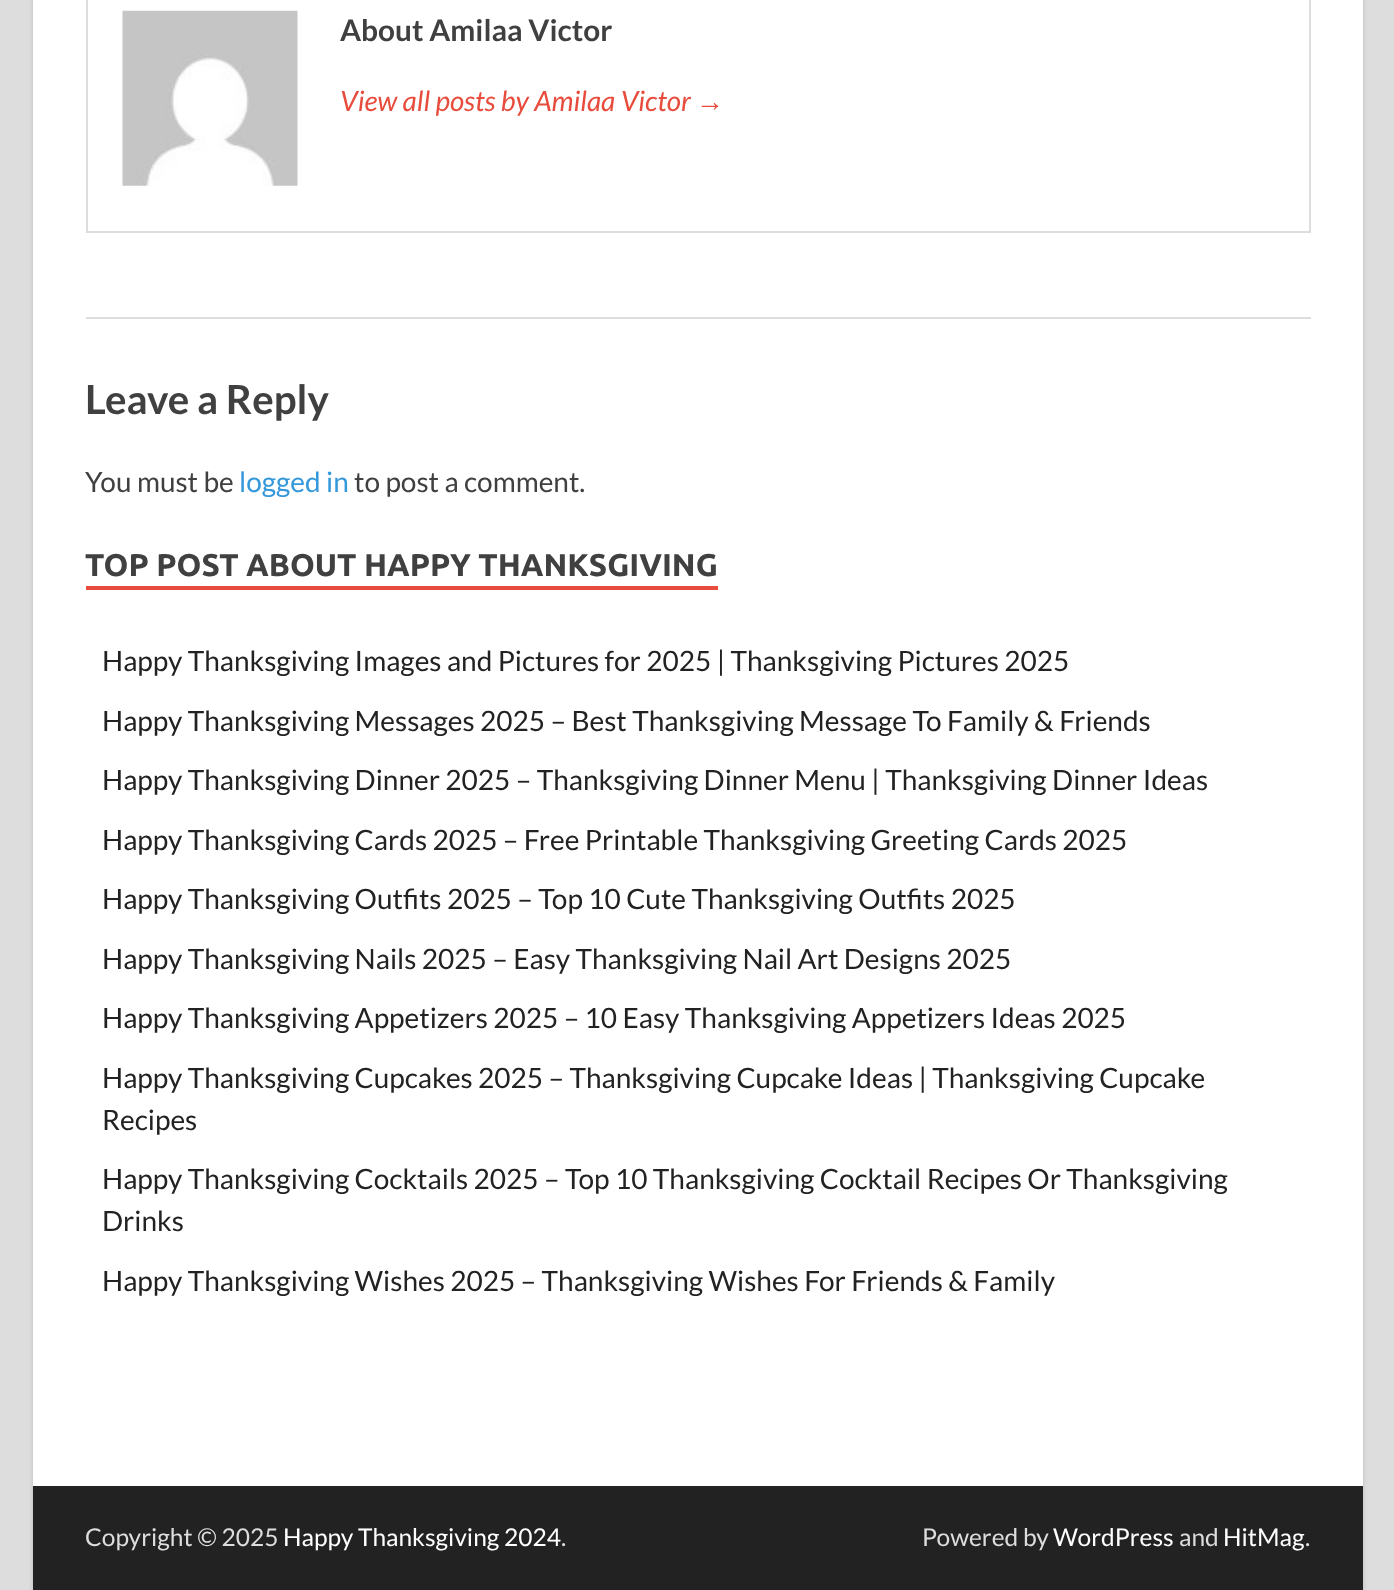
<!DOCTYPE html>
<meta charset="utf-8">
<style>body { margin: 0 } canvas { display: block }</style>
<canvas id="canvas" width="1394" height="1590"></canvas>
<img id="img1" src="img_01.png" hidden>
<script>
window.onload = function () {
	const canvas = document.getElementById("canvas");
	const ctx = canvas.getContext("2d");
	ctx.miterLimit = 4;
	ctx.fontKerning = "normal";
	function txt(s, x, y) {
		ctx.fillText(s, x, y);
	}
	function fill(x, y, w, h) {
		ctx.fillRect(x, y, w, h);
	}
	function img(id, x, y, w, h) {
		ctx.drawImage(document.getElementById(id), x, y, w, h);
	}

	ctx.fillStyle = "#DDDDDD";
	fill(0, 0, 1394, 1590);
	ctx.fillStyle = "#BBBBBB";
	ctx.filter = "blur(2px)";
	ctx.beginPath();
	ctx.rect(33, -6, 1330, 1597);
	ctx.fill();
	ctx.filter = "none";
	ctx.fillStyle = "#FFFFFF";
	fill(33, 0, 1330, 1486);
	ctx.strokeStyle = "#DDDDDD";
	ctx.lineWidth = 2;
	ctx.strokeRect(87, -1, 1223, 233);
	img("img1", 122, 10, 176, 176);
	ctx.fillStyle = "#DDDDDD";
	fill(86, 317, 1225, 2);
	ctx.fillStyle = "#E74C3C";
	fill(86, 586, 632, 4);
	ctx.fillStyle = "#222222";
	fill(33, 1486, 1330, 104);
	ctx.font = "bold 29.75px Lato";
	ctx.fillStyle = "#404040";
	txt("About Amilaa Victor", 340, 41);
	ctx.font = "italic 28px Lato";
	ctx.fillStyle = "#E74C3C";
	txt("View all posts by Amilaa Victor", 340, 111);
	ctx.font = "italic 28px Liberation Sans";
	txt("→", 696, 111);
	ctx.font = "bold 40.25px Lato";
	ctx.fillStyle = "#404040";
	txt("Leave a Reply", 85, 414);
	ctx.font = "28px Lato";
	txt("You must be", 85, 492);
	ctx.fillStyle = "#3498DB";
	txt("logged in", 239, 492);
	ctx.fillStyle = "#404040";
	txt("to post a comment.", 354, 492);
	ctx.font = "bold 31.5px Ubuntu";
	txt("TOP POST ABOUT HAPPY THANKSGIVING", 85, 576);
	ctx.font = "28px Lato";
	ctx.fillStyle = "#222222";
	txt("Happy Thanksgiving Images and Pictures for 2025 | Thanksgiving Pictures 2025", 102, 671);
	txt("Happy Thanksgiving Messages 2025 – Best Thanksgiving Message To Family & Friends", 102, 731);
	txt("Happy Thanksgiving Dinner 2025 – Thanksgiving Dinner Menu | Thanksgiving Dinner Ideas", 102, 790);
	txt("Happy Thanksgiving Cards 2025 – Free Printable Thanksgiving Greeting Cards 2025", 102, 850);
	txt("Happy Thanksgiving Outfits 2025 – Top 10 Cute Thanksgiving Outfits 2025", 102, 909);
	txt("Happy Thanksgiving Nails 2025 – Easy Thanksgiving Nail Art Designs 2025", 102, 969);
	txt("Happy Thanksgiving Appetizers 2025 – 10 Easy Thanksgiving Appetizers Ideas 2025", 102, 1028);
	txt("Happy Thanksgiving Cupcakes 2025 – Thanksgiving Cupcake Ideas | Thanksgiving Cupcake", 102, 1088);
	txt("Recipes", 102, 1130);
	txt("Happy Thanksgiving Cocktails 2025 – Top 10 Thanksgiving Cocktail Recipes Or Thanksgiving", 102, 1189);
	txt("Drinks", 102, 1231);
	txt("Happy Thanksgiving Wishes 2025 – Thanksgiving Wishes For Friends & Family", 102, 1291);
	ctx.font = "24.5px Lato";
	ctx.fillStyle = "#DDDDDD";
	txt("Copyright © 2025", 85, 1546);
	ctx.fillStyle = "#FFFFFF";
	txt("Happy Thanksgiving 2024", 283, 1546);
	ctx.fillStyle = "#DDDDDD";
	txt(".", 561, 1546);
	txt("Powered by", 922, 1546);
	ctx.fillStyle = "#FFFFFF";
	txt("WordPress", 1053, 1546);
	ctx.fillStyle = "#DDDDDD";
	txt("and", 1179, 1546);
	ctx.fillStyle = "#FFFFFF";
	txt("HitMag", 1223, 1546);
	ctx.fillStyle = "#DDDDDD";
	txt(".", 1305, 1546);
};
</script>
